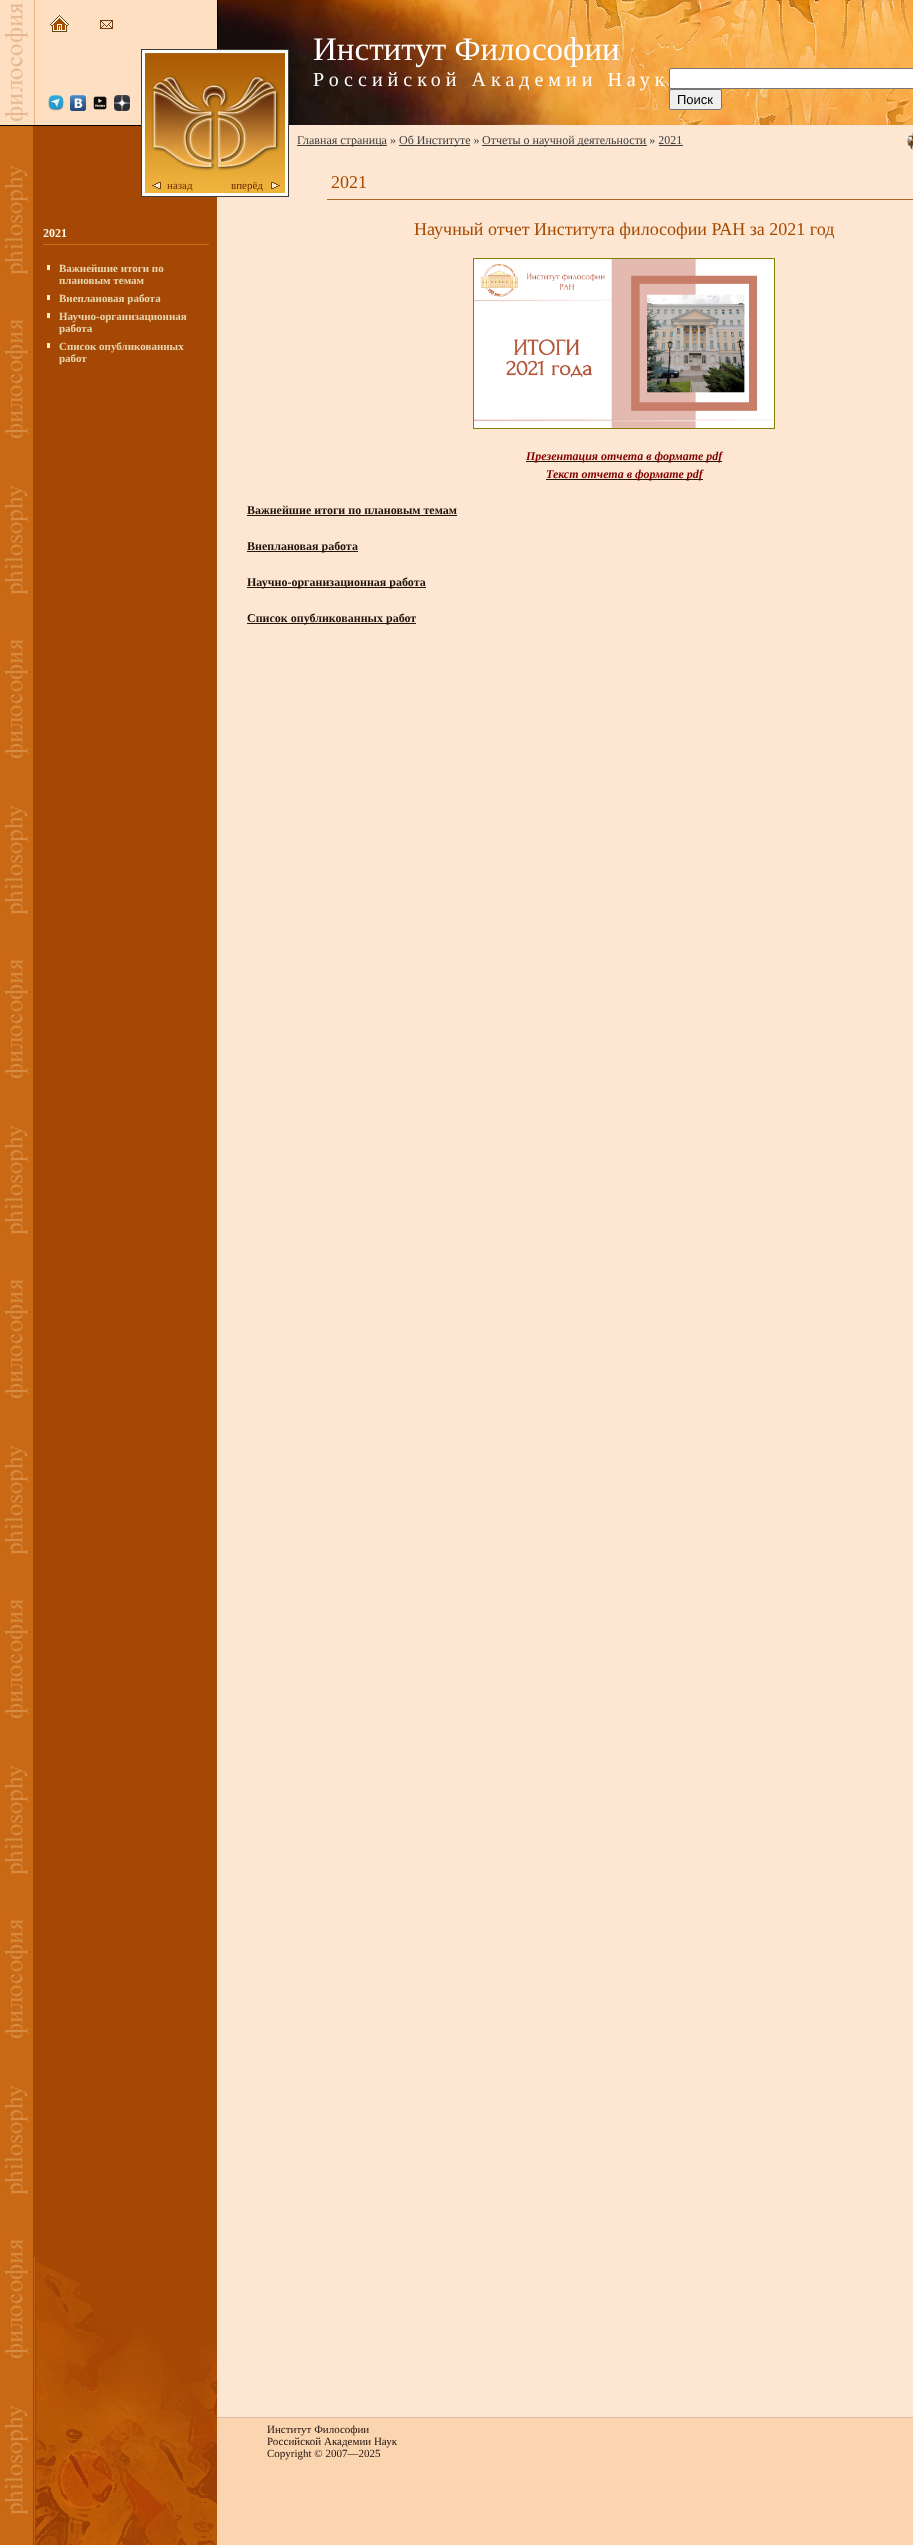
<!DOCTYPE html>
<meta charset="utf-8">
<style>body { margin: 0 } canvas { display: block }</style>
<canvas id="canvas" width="913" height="2545"></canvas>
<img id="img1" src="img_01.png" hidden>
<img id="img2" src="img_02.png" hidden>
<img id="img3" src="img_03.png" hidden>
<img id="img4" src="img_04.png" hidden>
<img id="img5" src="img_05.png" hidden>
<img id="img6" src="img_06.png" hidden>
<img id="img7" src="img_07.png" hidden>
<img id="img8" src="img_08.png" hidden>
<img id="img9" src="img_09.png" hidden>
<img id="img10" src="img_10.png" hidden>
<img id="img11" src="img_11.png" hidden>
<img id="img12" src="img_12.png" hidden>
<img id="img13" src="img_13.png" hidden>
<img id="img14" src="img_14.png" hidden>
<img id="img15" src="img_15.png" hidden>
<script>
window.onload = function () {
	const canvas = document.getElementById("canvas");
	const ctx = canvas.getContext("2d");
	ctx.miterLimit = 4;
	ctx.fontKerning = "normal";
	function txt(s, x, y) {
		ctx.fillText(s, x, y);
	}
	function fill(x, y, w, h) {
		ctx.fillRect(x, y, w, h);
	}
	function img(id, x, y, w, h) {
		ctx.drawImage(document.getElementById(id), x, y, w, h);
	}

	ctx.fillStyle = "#FFDFC1";
	fill(0, 0, 913, 2545);
	img("img1", 4, 0, 31, 125);
	ctx.fillStyle = "#000000";
	fill(217, 0, 1, 49);
	img("img2", 50, 15, 19, 17);
	img("img3", 100, 20, 13, 9);
	img("img4", 218, 0, 695, 125);
	ctx.fillStyle = "#FFFFFF";
	ctx.beginPath();
	ctx.roundRect(669.5, 68.5, 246, 20, 1.5);
	ctx.fill();
	ctx.strokeStyle = "#767676";
	ctx.stroke();
	ctx.fillStyle = "#EFEFEF";
	ctx.beginPath();
	ctx.roundRect(669.5, 89.5, 52, 20, 1.5);
	ctx.fill();
	ctx.stroke();
	ctx.fillStyle = "#FBD4B0";
	fill(217, 2418, 696, 127);
	ctx.fillStyle = "#000000";
	fill(0, 125, 141, 1);
	img("img5", 0, 126, 33, 2419);
	ctx.fillStyle = "#A54805";
	fill(33, 126, 184, 2419);
	img("img6", 34, 2257, 183, 288);
	ctx.fillStyle = "#CC6B1A";
	fill(43, 244, 166, 1);
	ctx.fillStyle = "#FFEBC2";
	fill(47, 265, 3, 5);
	fill(47, 295, 3, 5);
	fill(47, 313, 3, 5);
	fill(47, 343, 3, 5);
	ctx.fillStyle = "#FDE7D2";
	fill(289, 125, 624, 30);
	ctx.fillStyle = "#404040";
	fill(297, 145, 90, 1);
	fill(399, 145, 71, 1);
	fill(482, 145, 165, 1);
	fill(659, 145, 24, 1);
	img("img7", 906, 132, 7, 18);
	ctx.fillStyle = "#FDE7D2";
	fill(217, 155, 696, 2262);
	ctx.fillStyle = "#B26620";
	fill(327, 199, 586, 1);
	ctx.strokeStyle = "#808000";
	ctx.strokeRect(473.5, 258.5, 301, 170);
	img("img8", 474, 259, 300, 169);
	ctx.fillStyle = "#261808";
	fill(526, 461, 196, 1);
	fill(546, 479, 157, 1);
	fill(247, 515, 210, 1);
	fill(247, 551, 111, 1);
	fill(247, 587, 179, 1);
	fill(247, 623, 169, 1);
	ctx.fillStyle = "#D9BAA3";
	fill(217, 2417, 696, 1);
	img("img9", 48, 95, 16, 16);
	img("img10", 70, 95, 16, 16);
	img("img11", 93, 96, 14, 14);
	img("img12", 114, 95, 16, 16);
	img("img13", 141, 49, 148, 148);
	img("img14", 152, 182, 9, 7);
	img("img15", 271, 182, 9, 7);
	ctx.font = "33px Liberation Serif";
	ctx.fillStyle = "#FFFFFF";
	txt("Институт Философии", 313, 60);
	ctx.letterSpacing = "5px";
	ctx.font = "20px Liberation Serif";
	txt("Российской Академии Наук", 313, 86);
	ctx.letterSpacing = "0px";
	ctx.font = "13px Liberation Sans";
	ctx.fillStyle = "#000000";
	txt("Поиск", 677, 104);
	ctx.font = "bold 12px Liberation Serif";
	ctx.fillStyle = "#FFF7E5";
	txt("2021", 43, 237);
	ctx.font = "bold 11px Liberation Serif";
	ctx.fillStyle = "#EAD6AC";
	txt("Важнейшие итоги по", 59, 272);
	txt("плановым темам", 59, 284);
	txt("Внеплановая работа", 59, 302);
	txt("Научно-организационная", 59, 320);
	txt("работа", 59, 332);
	txt("Список опубликованных", 59, 350);
	txt("работ", 59, 362);
	ctx.font = "12px Liberation Serif";
	ctx.fillStyle = "#404040";
	txt("Главная страница »", 297, 144);
	txt("Об Институте »", 399, 144);
	txt("Отчеты о научной деятельности » 2021", 482, 144);
	ctx.font = "18px Liberation Serif";
	ctx.fillStyle = "#A54900";
	txt("2021", 331, 188);
	txt("Научный отчет Института философии РАН за 2021 год", 414, 235);
	ctx.font = "italic bold 12px Liberation Serif";
	ctx.fillStyle = "#800000";
	txt("Презентация отчета в формате pdf", 526, 460);
	txt("Текст отчета в формате pdf", 546, 478);
	ctx.font = "bold 12px Liberation Serif";
	ctx.fillStyle = "#21130D";
	txt("Важнейшие итоги по плановым темам", 247, 514);
	txt("Внеплановая работа", 247, 550);
	txt("Научно-организационная работа", 247, 586);
	txt("Список опубликованных работ", 247, 622);
	ctx.font = "11px Liberation Serif";
	txt("Институт Философии", 267, 2433);
	txt("Российской Академии Наук", 267, 2445);
	txt("Copyright © 2007—2025", 267, 2457);
	ctx.fillStyle = "#6E2C05";
	txt("назад", 167, 189);
	txt("вперёд", 231, 189);
};
</script>
